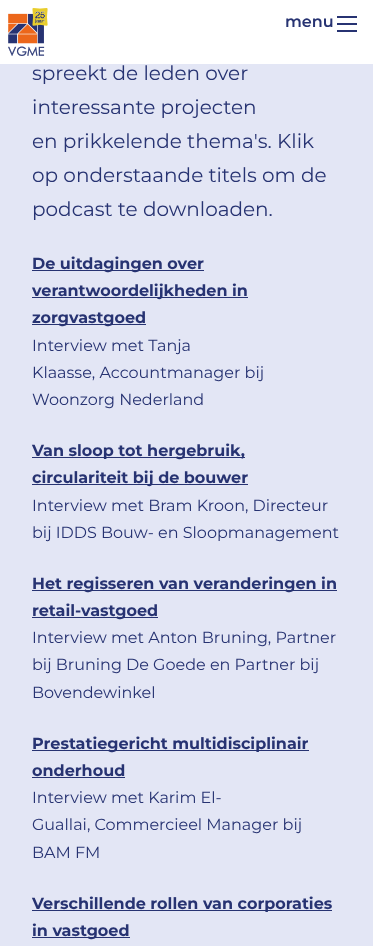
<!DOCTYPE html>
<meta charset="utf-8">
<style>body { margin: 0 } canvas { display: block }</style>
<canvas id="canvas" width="373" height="946"></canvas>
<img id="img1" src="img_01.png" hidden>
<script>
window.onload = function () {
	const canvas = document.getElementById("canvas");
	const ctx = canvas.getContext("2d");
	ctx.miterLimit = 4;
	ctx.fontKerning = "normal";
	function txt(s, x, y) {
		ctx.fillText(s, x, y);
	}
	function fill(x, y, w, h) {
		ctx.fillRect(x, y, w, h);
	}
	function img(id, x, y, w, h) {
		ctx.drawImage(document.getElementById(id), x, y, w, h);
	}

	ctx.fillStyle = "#E3E6F5";
	fill(0, 0, 373, 946);
	ctx.fillStyle = "#FFFFFF";
	fill(0, 0, 373, 64);
	ctx.fillStyle = "#273372";
	fill(337, 23, 20, 2);
	fill(337, 16, 20, 2);
	fill(337, 30, 20, 2);
	img("img1", 8, 8, 40, 48);
	fill(32, 270, 172, 1);
	fill(32, 297, 216, 1);
	fill(32, 324, 114, 1);
	fill(32, 457, 213, 1);
	fill(32, 484, 216, 1);
	fill(32, 590, 305, 1);
	fill(32, 617, 126, 1);
	fill(32, 750, 277, 1);
	fill(32, 777, 93, 1);
	fill(32, 910, 300, 1);
	fill(32, 937, 98, 1);
	ctx.font = "600 16px Montserrat";
	txt("menu", 285, 27);
	ctx.font = "20px Montserrat";
	txt("spreekt de leden over", 32, 80);
	txt("interessante projecten", 32, 114);
	txt("en prikkelende thema's. Klik", 32, 148);
	txt("op onderstaande titels om de", 32, 182);
	txt("podcast te downloaden.", 32, 216);
	ctx.font = "bold 16px Montserrat";
	txt("De uitdagingen over", 32, 269);
	txt("verantwoordelijkheden in", 32, 296);
	txt("zorgvastgoed", 32, 323);
	ctx.font = "16px Montserrat";
	txt("Interview met Tanja", 32, 351);
	txt("Klaasse, Accountmanager bij", 32, 378);
	txt("Woonzorg Nederland", 32, 405);
	ctx.font = "bold 16px Montserrat";
	txt("Van sloop tot hergebruik,", 32, 456);
	txt("circulariteit bij de bouwer", 32, 483);
	ctx.font = "16px Montserrat";
	txt("Interview met Bram Kroon, Directeur", 32, 511);
	txt("bij IDDS Bouw- en Sloopmanagement", 32, 538);
	ctx.font = "bold 16px Montserrat";
	txt("Het regisseren van veranderingen in", 32, 589);
	txt("retail-vastgoed", 32, 616);
	ctx.font = "16px Montserrat";
	txt("Interview met Anton Bruning, Partner", 32, 643);
	txt("bij Bruning De Goede en Partner bij", 32, 670);
	txt("Bovendewinkel", 32, 698);
	ctx.font = "bold 16px Montserrat";
	txt("Prestatiegericht multidisciplinair", 32, 749);
	txt("onderhoud", 32, 776);
	ctx.font = "16px Montserrat";
	txt("Interview met Karim El-", 32, 803);
	txt("Guallai, Commercieel Manager bij", 32, 830);
	txt("BAM FM", 32, 858);
	ctx.font = "bold 16px Montserrat";
	txt("Verschillende rollen van corporaties", 32, 909);
	txt("in vastgoed", 32, 936);
};
</script>
